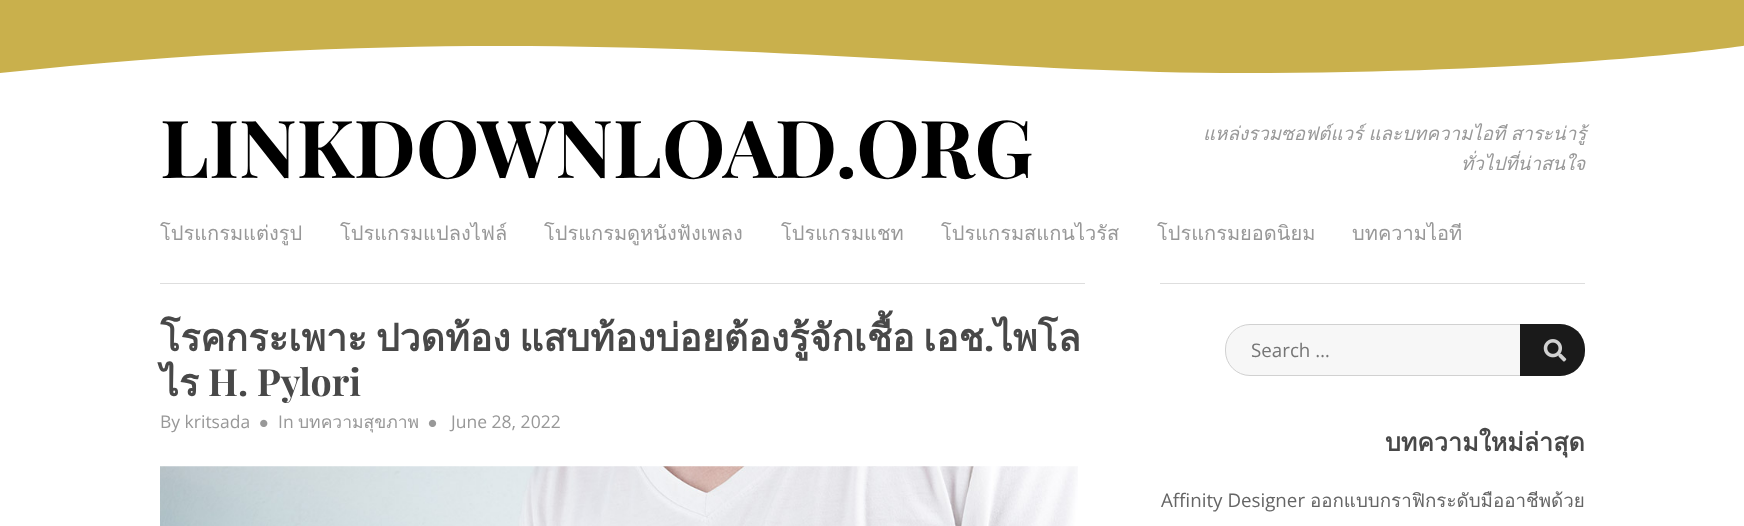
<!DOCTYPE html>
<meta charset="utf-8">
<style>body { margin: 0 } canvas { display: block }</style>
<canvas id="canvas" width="1744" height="526"></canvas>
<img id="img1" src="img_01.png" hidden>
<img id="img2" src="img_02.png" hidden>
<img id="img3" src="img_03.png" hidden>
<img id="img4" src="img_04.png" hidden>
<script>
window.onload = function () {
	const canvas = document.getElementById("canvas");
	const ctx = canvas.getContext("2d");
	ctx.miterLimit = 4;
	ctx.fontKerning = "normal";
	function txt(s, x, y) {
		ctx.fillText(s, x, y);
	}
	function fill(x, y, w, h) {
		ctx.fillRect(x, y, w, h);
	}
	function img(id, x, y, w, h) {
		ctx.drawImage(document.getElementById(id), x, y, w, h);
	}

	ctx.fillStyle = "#FFFFFF";
	fill(0, 0, 1744, 526);
	ctx.fillStyle = "#C9B04C";
	fill(0, 0, 1744, 73);
	ctx.save();
	ctx.beginPath();
	ctx.rect(0, 45, 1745, 35);
	ctx.clip();
	ctx.fillStyle = "#FFFFFF";
	ctx.beginPath();
	ctx.moveTo(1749, 83);
	ctx.lineTo(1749, 45);
	ctx.bezierCurveTo(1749, 45, 1572, 73, 1242, 73);
	ctx.bezierCurveTo(913, 73, 569, 12, 0, 73);
	ctx.lineTo(0, 83);
	ctx.closePath();
	ctx.fill();
	ctx.restore();
	ctx.fillStyle = "#DEDEDE";
	fill(160, 283, 925, 1);
	img("img1", 260, 419, 8, 8);
	img("img2", 428, 419, 9, 8);
	img("img3", 160, 466, 918, 60);
	fill(1160, 283, 425, 1);
	ctx.fillStyle = "#F7F7F7";
	ctx.beginPath();
	ctx.roundRect(1225.5, 324.5, 359, 51, 24.5);
	ctx.fill();
	ctx.strokeStyle = "#D1D1D1";
	ctx.stroke();
	ctx.fillStyle = "#1A1A1A";
	ctx.beginPath();
	ctx.roundRect(1520, 324, 65, 52, [0, 25, 25, 0]);
	ctx.fill();
	img("img4", 1543, 339, 24, 23);
	ctx.font = "bold 80px Playfair Display";
	ctx.fillStyle = "#000000";
	txt("LINKDOWNLOAD.ORG", 160, 178);
	ctx.wordSpacing = "-1px";
	ctx.font = "italic 18.75px Loma";
	ctx.fillStyle = "#989898";
	txt("แหล่งรวมซอฟต์แวร์ และบทความไอที สาระน่ารู้", 1203, 140);
	ctx.wordSpacing = "0px";
	txt("ทั่วไปที่น่าสนใจ", 1461, 170);
	ctx.font = "20px Loma";
	txt("โปรแกรมแต่งรูป", 160, 240);
	txt("โปรแกรมแปลงไฟล์", 340, 240);
	txt("โปรแกรมดูหนังฟังเพลง", 544, 240);
	txt("โปรแกรมแชท", 781, 240);
	txt("โปรแกรมสแกนไวรัส", 941, 240);
	txt("โปรแกรมยอดนิยม", 1157, 240);
	txt("บทความไอที", 1352, 240);
	ctx.wordSpacing = "-4px";
	ctx.font = "bold 37.5px Loma";
	ctx.fillStyle = "#484848";
	txt("โรคกระเพาะ ปวดท้อง แสบท้องบ่อยต้องรู้จักเชื้อ เอช", 160, 351);
	ctx.wordSpacing = "0px";
	ctx.font = "bold 37.5px Playfair Display";
	txt(".", 984, 351);
	ctx.font = "bold 37.5px Loma";
	txt("ไพโล", 994, 351);
	txt("ไร", 160, 396);
	ctx.font = "bold 37.5px Playfair Display";
	txt("H. Pylori", 208, 396);
	ctx.font = "17.5px Open Sans";
	ctx.fillStyle = "#989898";
	txt("By kritsada", 160, 428);
	txt("In", 278, 428);
	ctx.font = "17.5px Loma";
	txt("บทความสุขภาพ", 298, 428);
	ctx.font = "17.5px Open Sans";
	txt("June 28, 2022", 451, 428);
	ctx.font = "18.75px Open Sans";
	ctx.fillStyle = "#757575";
	txt("Search …", 1251, 357);
	ctx.font = "bold 25px Loma";
	ctx.fillStyle = "#484848";
	txt("บทความใหม่ล่าสุด", 1385, 451);
	ctx.font = "18.75px Open Sans";
	ctx.fillStyle = "#656565";
	txt("Affinity Designer", 1161, 507);
	ctx.font = "18.75px Loma";
	txt("ออกแบบกราฟิกระดับมืออาชีพด้วย", 1310, 507);
};
</script>
